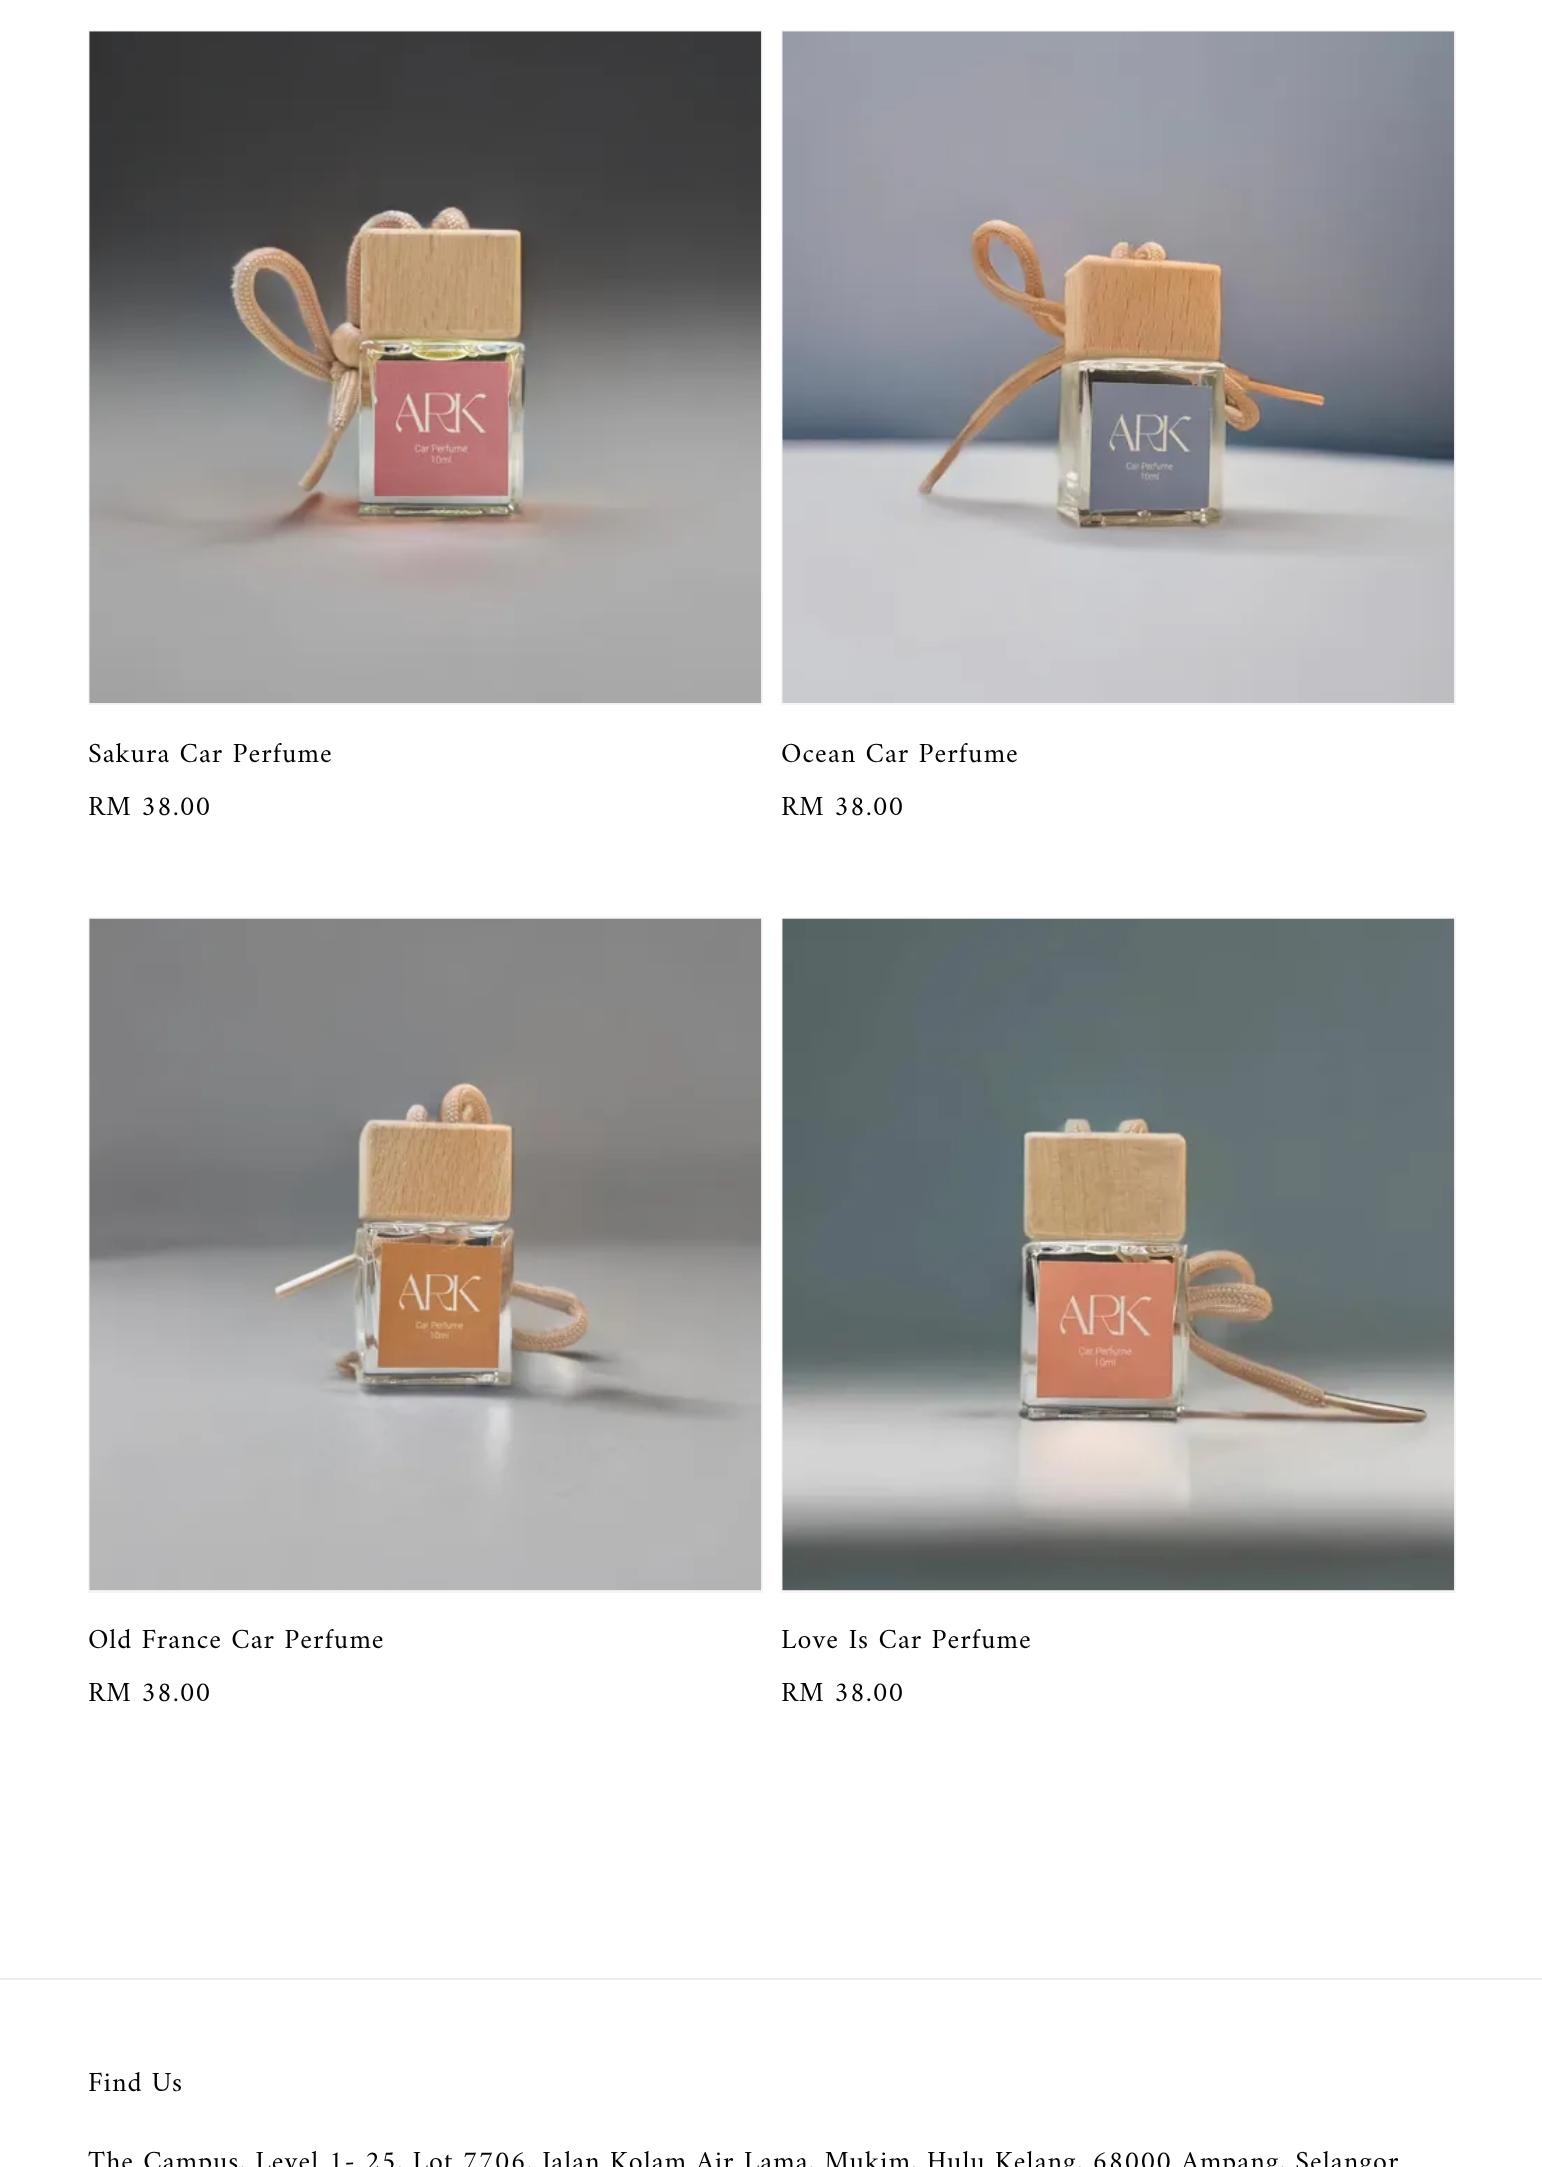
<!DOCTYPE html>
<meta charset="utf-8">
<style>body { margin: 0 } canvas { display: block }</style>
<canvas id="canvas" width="1542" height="2167"></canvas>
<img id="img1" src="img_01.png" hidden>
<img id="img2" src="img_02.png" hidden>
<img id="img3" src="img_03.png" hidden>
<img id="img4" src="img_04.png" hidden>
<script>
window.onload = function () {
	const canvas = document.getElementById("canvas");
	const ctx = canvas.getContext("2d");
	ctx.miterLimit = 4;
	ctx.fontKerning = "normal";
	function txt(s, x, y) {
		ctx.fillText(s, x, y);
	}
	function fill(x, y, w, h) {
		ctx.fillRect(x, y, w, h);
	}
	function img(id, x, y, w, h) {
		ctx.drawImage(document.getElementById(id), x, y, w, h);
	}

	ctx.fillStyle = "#FFFFFF";
	fill(0, 0, 1542, 2167);
	ctx.strokeStyle = "#F5F5F5";
	ctx.lineWidth = 2;
	ctx.strokeRect(89, 31, 673, 673);
	img("img1", 89, 31, 673, 673);
	ctx.strokeRect(782, 31, 673, 673);
	img("img2", 782, 31, 673, 672);
	ctx.strokeRect(89, 918, 673, 674);
	img("img3", 89, 918, 673, 673);
	ctx.strokeRect(782, 918, 673, 674);
	img("img4", 782, 918, 673, 673);
	ctx.fillStyle = "#EBEBEB";
	fill(0, 1978, 1542, 2);
	ctx.letterSpacing = "1.05px";
	ctx.font = "28px Amiri";
	ctx.fillStyle = "#000000";
	txt("Sakura Car Perfume", 88, 762);
	txt("RM 38.00", 88, 815);
	txt("Ocean Car Perfume", 781, 762);
	txt("RM 38.00", 781, 815);
	txt("Old France Car Perfume", 88, 1648);
	txt("RM 38.00", 88, 1701);
	txt("Love Is Car Perfume", 781, 1648);
	txt("RM 38.00", 781, 1701);
	txt("Find Us", 88, 2091);
	txt("The Campus, Level 1- 25, Lot 7706, Jalan Kolam Air Lama, Mukim, Hulu Kelang, 68000 Ampang, Selangor", 88, 2170);
};
</script>
